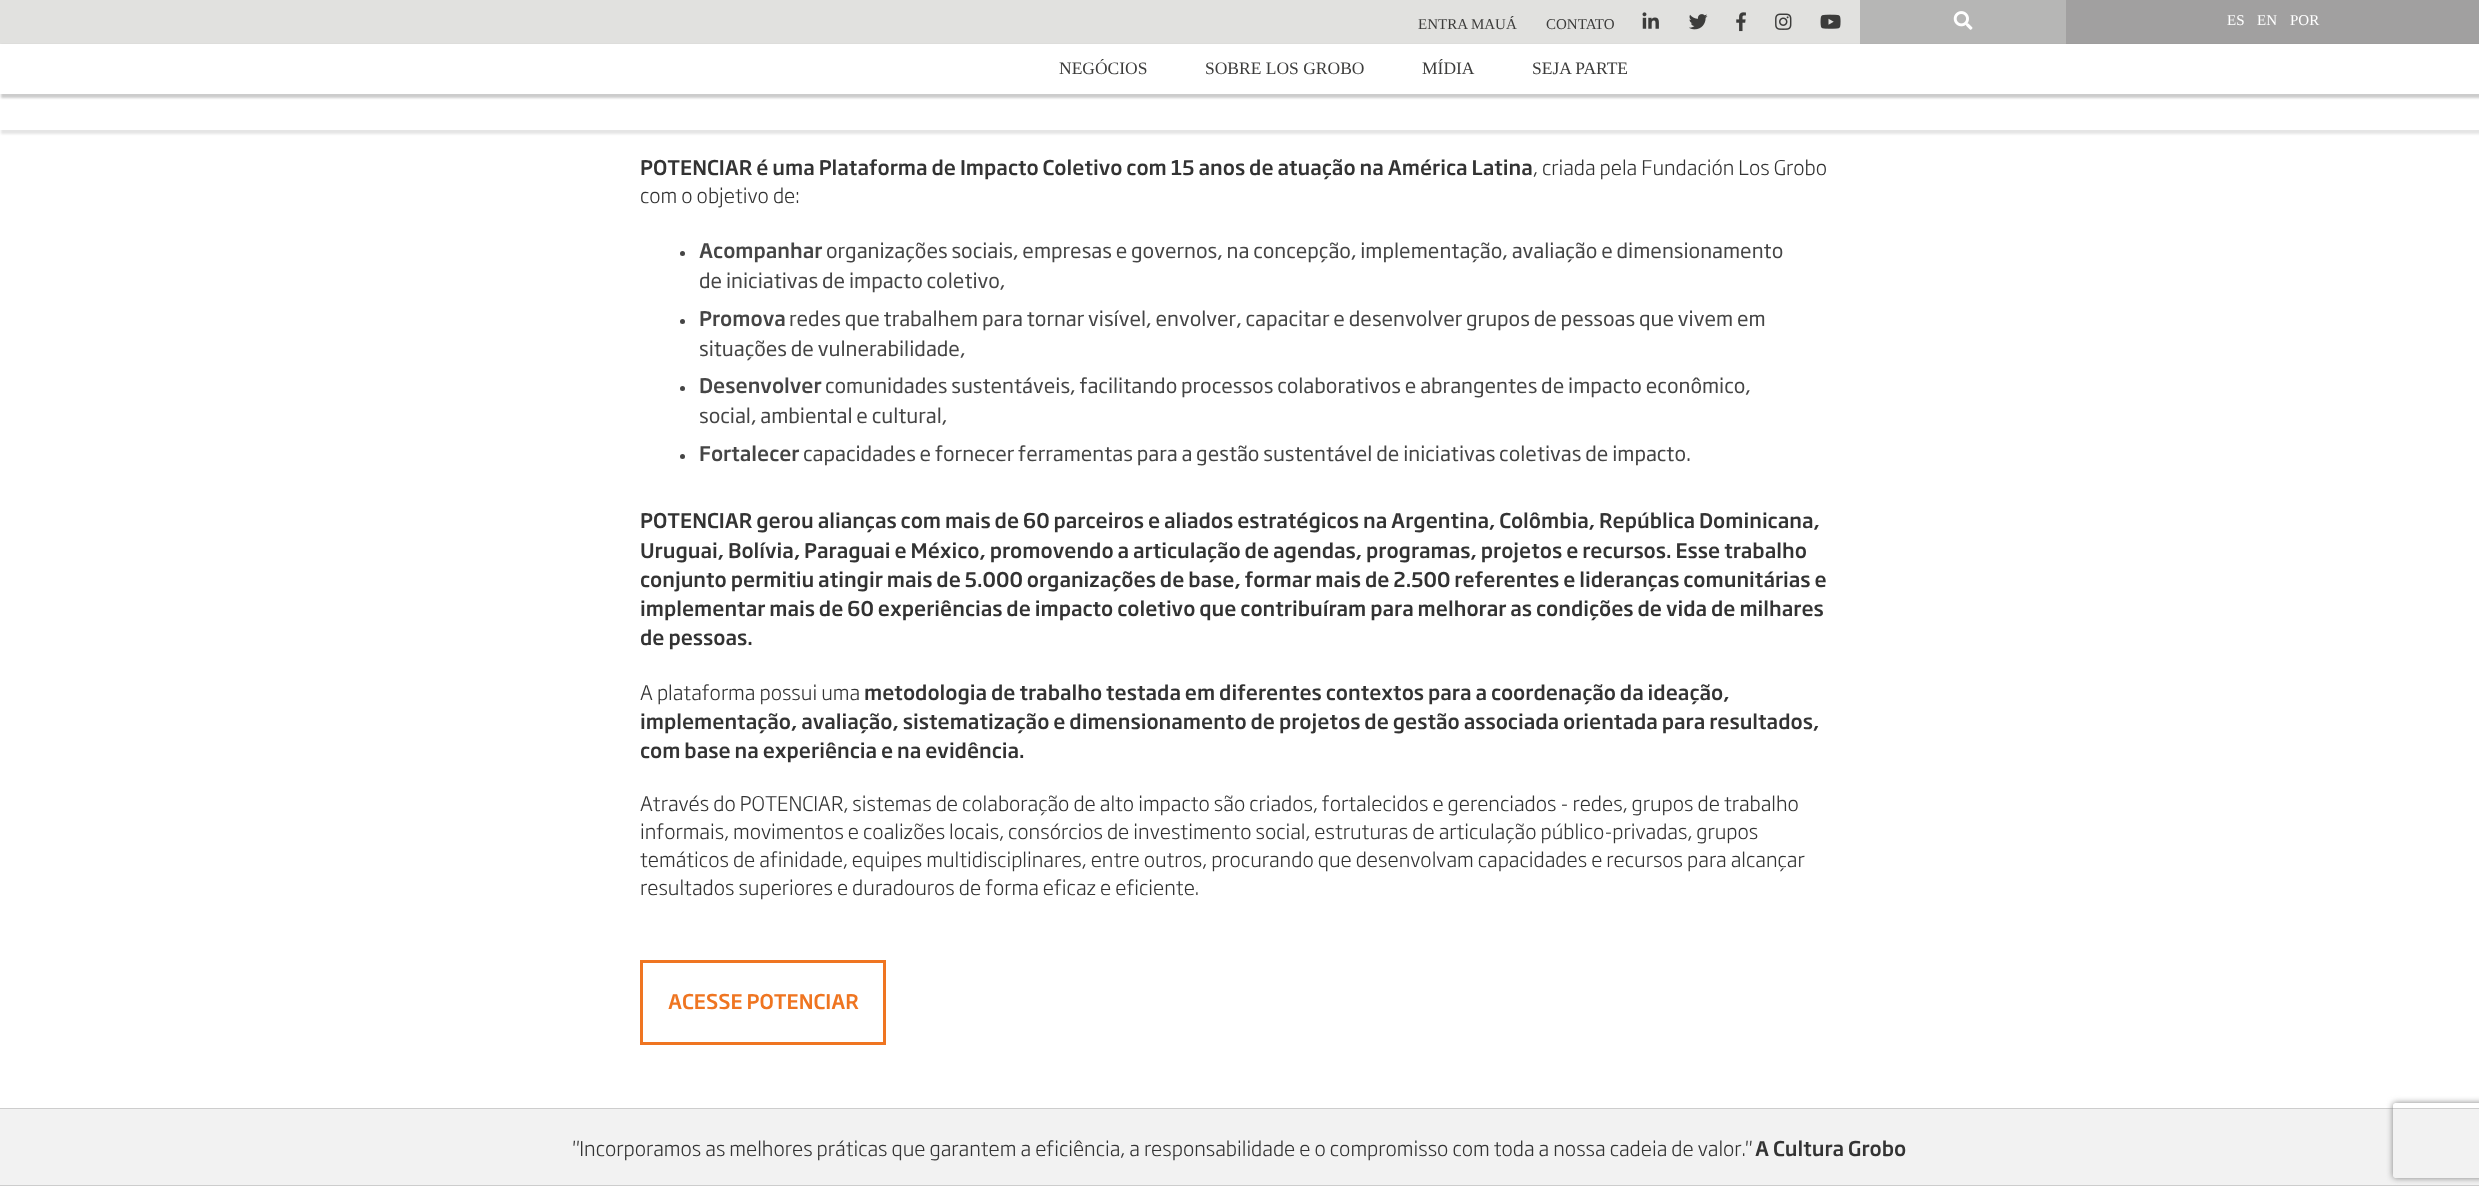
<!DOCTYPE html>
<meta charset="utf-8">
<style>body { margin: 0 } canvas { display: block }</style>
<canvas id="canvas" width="2479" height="1194"></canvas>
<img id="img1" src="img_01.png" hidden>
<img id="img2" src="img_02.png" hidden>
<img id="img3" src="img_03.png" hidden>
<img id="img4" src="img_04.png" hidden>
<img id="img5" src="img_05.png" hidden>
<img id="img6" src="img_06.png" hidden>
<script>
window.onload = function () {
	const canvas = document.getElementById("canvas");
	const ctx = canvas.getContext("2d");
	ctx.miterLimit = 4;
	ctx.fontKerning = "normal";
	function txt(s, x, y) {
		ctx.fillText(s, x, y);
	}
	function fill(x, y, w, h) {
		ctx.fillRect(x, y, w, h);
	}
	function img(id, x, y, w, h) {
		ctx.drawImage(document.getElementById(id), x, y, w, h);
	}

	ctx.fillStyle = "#FFFFFF";
	fill(0, 0, 2479, 1194);
	ctx.fillStyle = "rgba(0, 0, 0, 0.1)";
	ctx.filter = "blur(1px)";
	ctx.beginPath();
	ctx.rect(1, 1, 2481, 133);
	ctx.fill();
	ctx.filter = "none";
	ctx.fillStyle = "#FFFFFF";
	fill(0, 94, 2479, 36);
	ctx.fillStyle = "#E1E1DF";
	fill(0, 0, 1860, 44);
	img("img1", 1642, 12, 17, 17);
	img("img2", 1689, 14, 19, 16);
	img("img3", 1736, 12, 10, 20);
	img("img4", 1775, 13, 17, 17);
	img("img5", 1820, 14, 21, 15);
	ctx.fillStyle = "#B6B6B5";
	fill(1860, 0, 206, 44);
	img("img6", 1953, 11, 20, 19);
	ctx.fillStyle = "#A1A0A0";
	fill(2066, 0, 413, 44);
	ctx.fillStyle = "rgba(0, 0, 0, 0.2)";
	ctx.filter = "blur(1px)";
	ctx.beginPath();
	ctx.rect(1, 45, 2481, 53);
	ctx.fill();
	ctx.filter = "none";
	ctx.fillStyle = "#FFFFFF";
	fill(0, 44, 2479, 50);
	ctx.fillStyle = "#454545";
	ctx.beginPath();
	ctx.arc(682.5, 253.5, 2.5, 0, Math.PI * 2);
	ctx.fill();
	ctx.beginPath();
	ctx.arc(682.5, 321.5, 2.5, 0, Math.PI * 2);
	ctx.fill();
	ctx.beginPath();
	ctx.arc(682.5, 388.5, 2.5, 0, Math.PI * 2);
	ctx.fill();
	ctx.beginPath();
	ctx.arc(682.5, 456.5, 2.5, 0, Math.PI * 2);
	ctx.fill();
	ctx.strokeStyle = "#EF7521";
	ctx.lineWidth = 3;
	ctx.strokeRect(641.5, 961.5, 243, 82);
	ctx.fillStyle = "#F2F2F2";
	fill(0, 1109, 2479, 76);
	ctx.fillStyle = "#CDCDCD";
	fill(0, 1108, 2479, 1);
	fill(0, 1185, 2479, 1);
	ctx.save();
	ctx.beginPath();
	ctx.moveTo(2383, 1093);
	ctx.lineTo(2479, 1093);
	ctx.lineTo(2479, 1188);
	ctx.lineTo(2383, 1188);
	ctx.closePath();
	ctx.moveTo(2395.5, 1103);
	ctx.lineTo(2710.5, 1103);
	ctx.bezierCurveTo(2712, 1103, 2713, 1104, 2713, 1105.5);
	ctx.lineTo(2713, 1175.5);
	ctx.bezierCurveTo(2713, 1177, 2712, 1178, 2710.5, 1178);
	ctx.lineTo(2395.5, 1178);
	ctx.bezierCurveTo(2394, 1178, 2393, 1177, 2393, 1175.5);
	ctx.lineTo(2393, 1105.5);
	ctx.bezierCurveTo(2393, 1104, 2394, 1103, 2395.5, 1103);
	ctx.closePath();
	ctx.clip("evenodd");
	ctx.fillStyle = "#808080";
	ctx.filter = "blur(3px)";
	ctx.beginPath();
	ctx.roundRect(2393, 1103, 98, 75, 2.5);
	ctx.fill();
	ctx.filter = "none";
	ctx.restore();
	ctx.font = "15px Liberation Serif";
	ctx.fillStyle = "#3C3C3B";
	txt("ENTRA MAUÁ", 1418, 29);
	txt("CONTATO", 1546, 29);
	ctx.fillStyle = "#FFFFFF";
	txt("ES", 2227, 25);
	txt("EN", 2257, 25);
	txt("POR", 2290, 25);
	ctx.font = "17.5px Liberation Serif";
	ctx.fillStyle = "#3C3C3B";
	txt("NEGÓCIOS", 1059, 74);
	txt("SOBRE LOS GROBO", 1205, 74);
	txt("MÍDIA", 1422, 74);
	txt("SEJA PARTE", 1532, 74);
	ctx.font = "500 20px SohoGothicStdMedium";
	ctx.fillStyle = "#333333";
	txt("POTENCIAR é uma Plataforma de Impacto Coletivo com 15 anos de atuação na América Latina", 640, 175);
	ctx.font = "300 20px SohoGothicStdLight";
	txt(", criada pela Fundación Los Grobo", 1533, 175);
	txt("com o objetivo de:", 640, 203);
	ctx.font = "500 20px SohoGothicStdMedium";
	ctx.fillStyle = "#454545";
	txt("Acompanhar", 699, 258);
	ctx.font = "20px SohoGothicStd";
	txt("organizações sociais, empresas e governos, na concepção, implementação, avaliação e dimensionamento", 826, 258);
	txt("de iniciativas de impacto coletivo,", 699, 288);
	ctx.font = "500 20px SohoGothicStdMedium";
	txt("Promova", 699, 326);
	ctx.font = "20px SohoGothicStd";
	txt("redes que trabalhem para tornar visível, envolver, capacitar e desenvolver grupos de pessoas que vivem em", 789, 326);
	txt("situações de vulnerabilidade,", 699, 356);
	ctx.font = "500 20px SohoGothicStdMedium";
	txt("Desenvolver", 699, 393);
	ctx.font = "20px SohoGothicStd";
	txt("comunidades sustentáveis, facilitando processos colaborativos e abrangentes de impacto econômico,", 825, 393);
	txt("social, ambiental e cultural,", 699, 423);
	ctx.font = "500 20px SohoGothicStdMedium";
	txt("Fortalecer", 699, 461);
	ctx.font = "20px SohoGothicStd";
	txt("capacidades e fornecer ferramentas para a gestão sustentável de iniciativas coletivas de impacto.", 803, 461);
	ctx.font = "500 20px SohoGothicStdMedium";
	ctx.fillStyle = "#333333";
	txt("POTENCIAR gerou alianças com mais de 60 parceiros e aliados estratégicos na Argentina, Colômbia, República Dominicana,", 640, 528);
	txt("Uruguai, Bolívia, Paraguai e México, promovendo a articulação de agendas, programas, projetos e recursos. Esse trabalho", 640, 558);
	txt("conjunto permitiu atingir mais de 5.000 organizações de base, formar mais de 2.500 referentes e lideranças comunitárias e", 640, 587);
	txt("implementar mais de 60 experiências de impacto coletivo que contribuíram para melhorar as condições de vida de milhares", 640, 616);
	txt("de pessoas.", 640, 645);
	ctx.font = "300 20px SohoGothicStdLight";
	txt("A plataforma possui uma", 640, 700);
	ctx.font = "500 20px SohoGothicStdMedium";
	txt("metodologia de trabalho testada em diferentes contextos para a coordenação da ideação,", 864, 700);
	txt("implementação, avaliação, sistematização e dimensionamento de projetos de gestão associada orientada para resultados,", 640, 729);
	txt("com base na experiência e na evidência.", 640, 758);
	ctx.font = "300 20px SohoGothicStdLight";
	txt("Através do POTENCIAR, sistemas de colaboração de alto impacto são criados, fortalecidos e gerenciados - redes, grupos de trabalho", 640, 811);
	txt("informais, movimentos e coalizões locais, consórcios de investimento social, estruturas de articulação público-privadas, grupos", 640, 839);
	txt("temáticos de afinidade, equipes multidisciplinares, entre outros, procurando que desenvolvam capacidades e recursos para alcançar", 640, 867);
	txt("resultados superiores e duradouros de forma eficaz e eficiente.", 640, 895);
	ctx.font = "500 20px SohoGothicStdMedium";
	ctx.fillStyle = "#EF7521";
	txt("ACESSE POTENCIAR", 668, 1009);
	ctx.font = "300 20px SohoGothicStdLight";
	ctx.fillStyle = "#333333";
	txt("\"Incorporamos as melhores práticas que garantem a eficiência, a responsabilidade e o compromisso com toda a nossa cadeia de valor.\"", 573, 1156);
	ctx.font = "500 20px SohoGothicStdMedium";
	txt("A Cultura Grobo", 1755, 1156);
};
</script>
